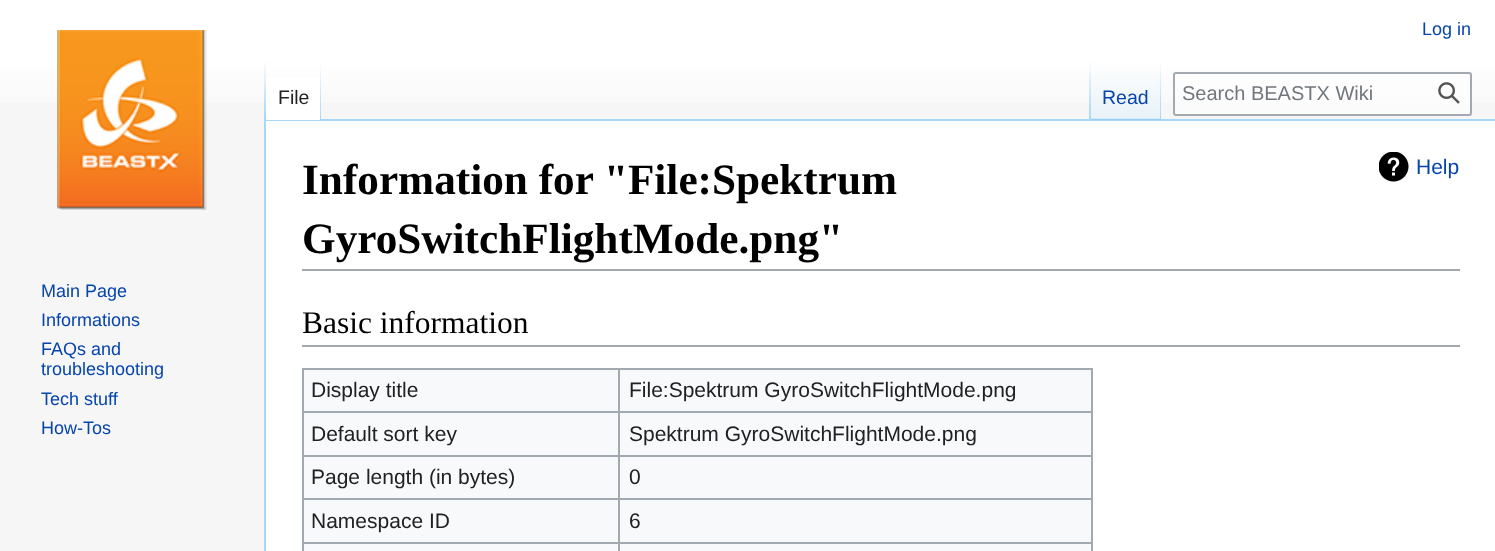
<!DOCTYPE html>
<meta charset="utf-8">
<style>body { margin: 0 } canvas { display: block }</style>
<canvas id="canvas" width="1495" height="551"></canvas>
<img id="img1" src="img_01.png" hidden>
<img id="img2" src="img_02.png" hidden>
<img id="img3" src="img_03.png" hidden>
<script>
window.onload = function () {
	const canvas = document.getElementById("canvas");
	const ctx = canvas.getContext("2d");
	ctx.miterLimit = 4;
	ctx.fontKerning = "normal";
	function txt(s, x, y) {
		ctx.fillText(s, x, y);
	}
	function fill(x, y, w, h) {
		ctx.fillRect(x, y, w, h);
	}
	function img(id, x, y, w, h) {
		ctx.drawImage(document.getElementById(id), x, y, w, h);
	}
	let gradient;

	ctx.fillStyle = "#F6F6F6";
	fill(0, 0, 1495, 551);
	gradient = ctx.createLinearGradient(748, 0, 748, 120);
	gradient.addColorStop(0.5, "#FFFFFF");
	gradient.addColorStop(1, "#F6F6F6");
	ctx.fillStyle = gradient;
	fill(0, 0, 1495, 103);
	ctx.fillStyle = "#A7D7F9";
	fill(264, 119, 1231, 2);
	fill(264, 119, 2, 432);
	gradient = ctx.createLinearGradient(265, 60, 265, 120);
	gradient.addColorStop(0, "rgba(167, 215, 249, 0)");
	gradient.addColorStop(1, "#A7D7F9");
	ctx.fillStyle = gradient;
	fill(264, 60, 2, 60);
	ctx.fillStyle = "#FFFFFF";
	fill(266, 77, 54, 43);
	gradient = ctx.createLinearGradient(320, 60, 320, 120);
	gradient.addColorStop(0, "#FFFFFF");
	gradient.addColorStop(1, "#A7D7F9");
	ctx.fillStyle = gradient;
	fill(320, 60, 1, 60);
	gradient = ctx.createLinearGradient(1090, 60, 1090, 120);
	gradient.addColorStop(0, "rgba(167, 215, 249, 0)");
	gradient.addColorStop(1, "#A7D7F9");
	ctx.fillStyle = gradient;
	fill(1089, 60, 2, 60);
	gradient = ctx.createLinearGradient(1126, 120, 1126, 60);
	gradient.addColorStop(0, "#77C1F6");
	gradient.addColorStop(0.03, "#E8F2F8");
	gradient.addColorStop(1, "#FFFFFF");
	ctx.fillStyle = gradient;
	fill(1091, 69, 70, 51);
	gradient = ctx.createLinearGradient(1160, 60, 1160, 120);
	gradient.addColorStop(0, "rgba(167, 215, 249, 0)");
	gradient.addColorStop(1, "#A7D7F9");
	ctx.fillStyle = gradient;
	fill(1160, 60, 1, 60);
	ctx.fillStyle = "rgba(255, 255, 255, 0.5)";
	ctx.beginPath();
	ctx.roundRect(1174, 73, 297, 42, 2);
	ctx.fill();
	ctx.strokeStyle = "#A2A9B1";
	ctx.lineWidth = 2;
	ctx.stroke();
	img("img1", 1438, 82, 22, 22);
	img("img2", 57, 30, 150, 180);
	ctx.fillStyle = "#FFFFFF";
	fill(266, 121, 1229, 430);
	ctx.fillStyle = "#A2A9B1";
	fill(302, 269, 1158, 2);
	img("img3", 1379, 152, 30, 30);
	fill(302, 345, 1158, 2);
	ctx.fillStyle = "#F8F9FA";
	fill(304, 370, 787, 181);
	ctx.fillStyle = "#A2A9B1";
	fill(302, 368, 790, 2);
	fill(1091, 368, 2, 183);
	fill(302, 368, 2, 183);
	fill(618, 411, 474, 2);
	fill(618, 455, 474, 2);
	fill(618, 498, 474, 2);
	fill(618, 542, 474, 2);
	fill(618, 542, 2, 9);
	fill(302, 542, 318, 2);
	fill(618, 498, 2, 45);
	fill(302, 498, 318, 2);
	fill(618, 455, 2, 45);
	fill(302, 455, 318, 2);
	fill(618, 411, 2, 45);
	fill(302, 411, 318, 2);
	fill(618, 368, 2, 45);
	ctx.font = "18px Liberation Sans";
	ctx.fillStyle = "#0645AD";
	txt("Log in", 1422, 35);
	ctx.font = "19.5px Liberation Sans";
	ctx.fillStyle = "#202122";
	txt("File", 278, 104);
	ctx.fillStyle = "#0645AD";
	txt("Read", 1102, 104);
	ctx.font = "20px Liberation Sans";
	ctx.fillStyle = "#72777D";
	txt("Search BEASTX Wiki", 1182, 100);
	ctx.font = "18px Liberation Sans";
	ctx.fillStyle = "#0645AD";
	txt("Main Page", 41, 297);
	txt("Informations", 41, 326);
	txt("FAQs and", 41, 355);
	txt("troubleshooting", 41, 375);
	txt("Tech stuff", 41, 405);
	txt("How-Tos", 41, 434);
	ctx.font = "bold 43.25px Liberation Serif";
	ctx.fillStyle = "#000000";
	txt("Information for \"File:Spektrum", 302, 194);
	txt("GyroSwitchFlightMode.png\"", 302, 253);
	ctx.font = "21px Liberation Sans";
	ctx.fillStyle = "#0645AD";
	txt("Help", 1416, 174);
	ctx.font = "31.5px Liberation Serif";
	ctx.fillStyle = "#000000";
	txt("Basic information", 302, 333);
	ctx.font = "21px Liberation Sans";
	ctx.fillStyle = "#202122";
	txt("Display title", 311, 397);
	txt("File:Spektrum GyroSwitchFlightMode.png", 629, 397);
	txt("Default sort key", 311, 441);
	txt("Spektrum GyroSwitchFlightMode.png", 629, 441);
	txt("Page length (in bytes)", 311, 484);
	txt("0", 629, 484);
	txt("Namespace ID", 311, 528);
	txt("6", 629, 528);
};
</script>
